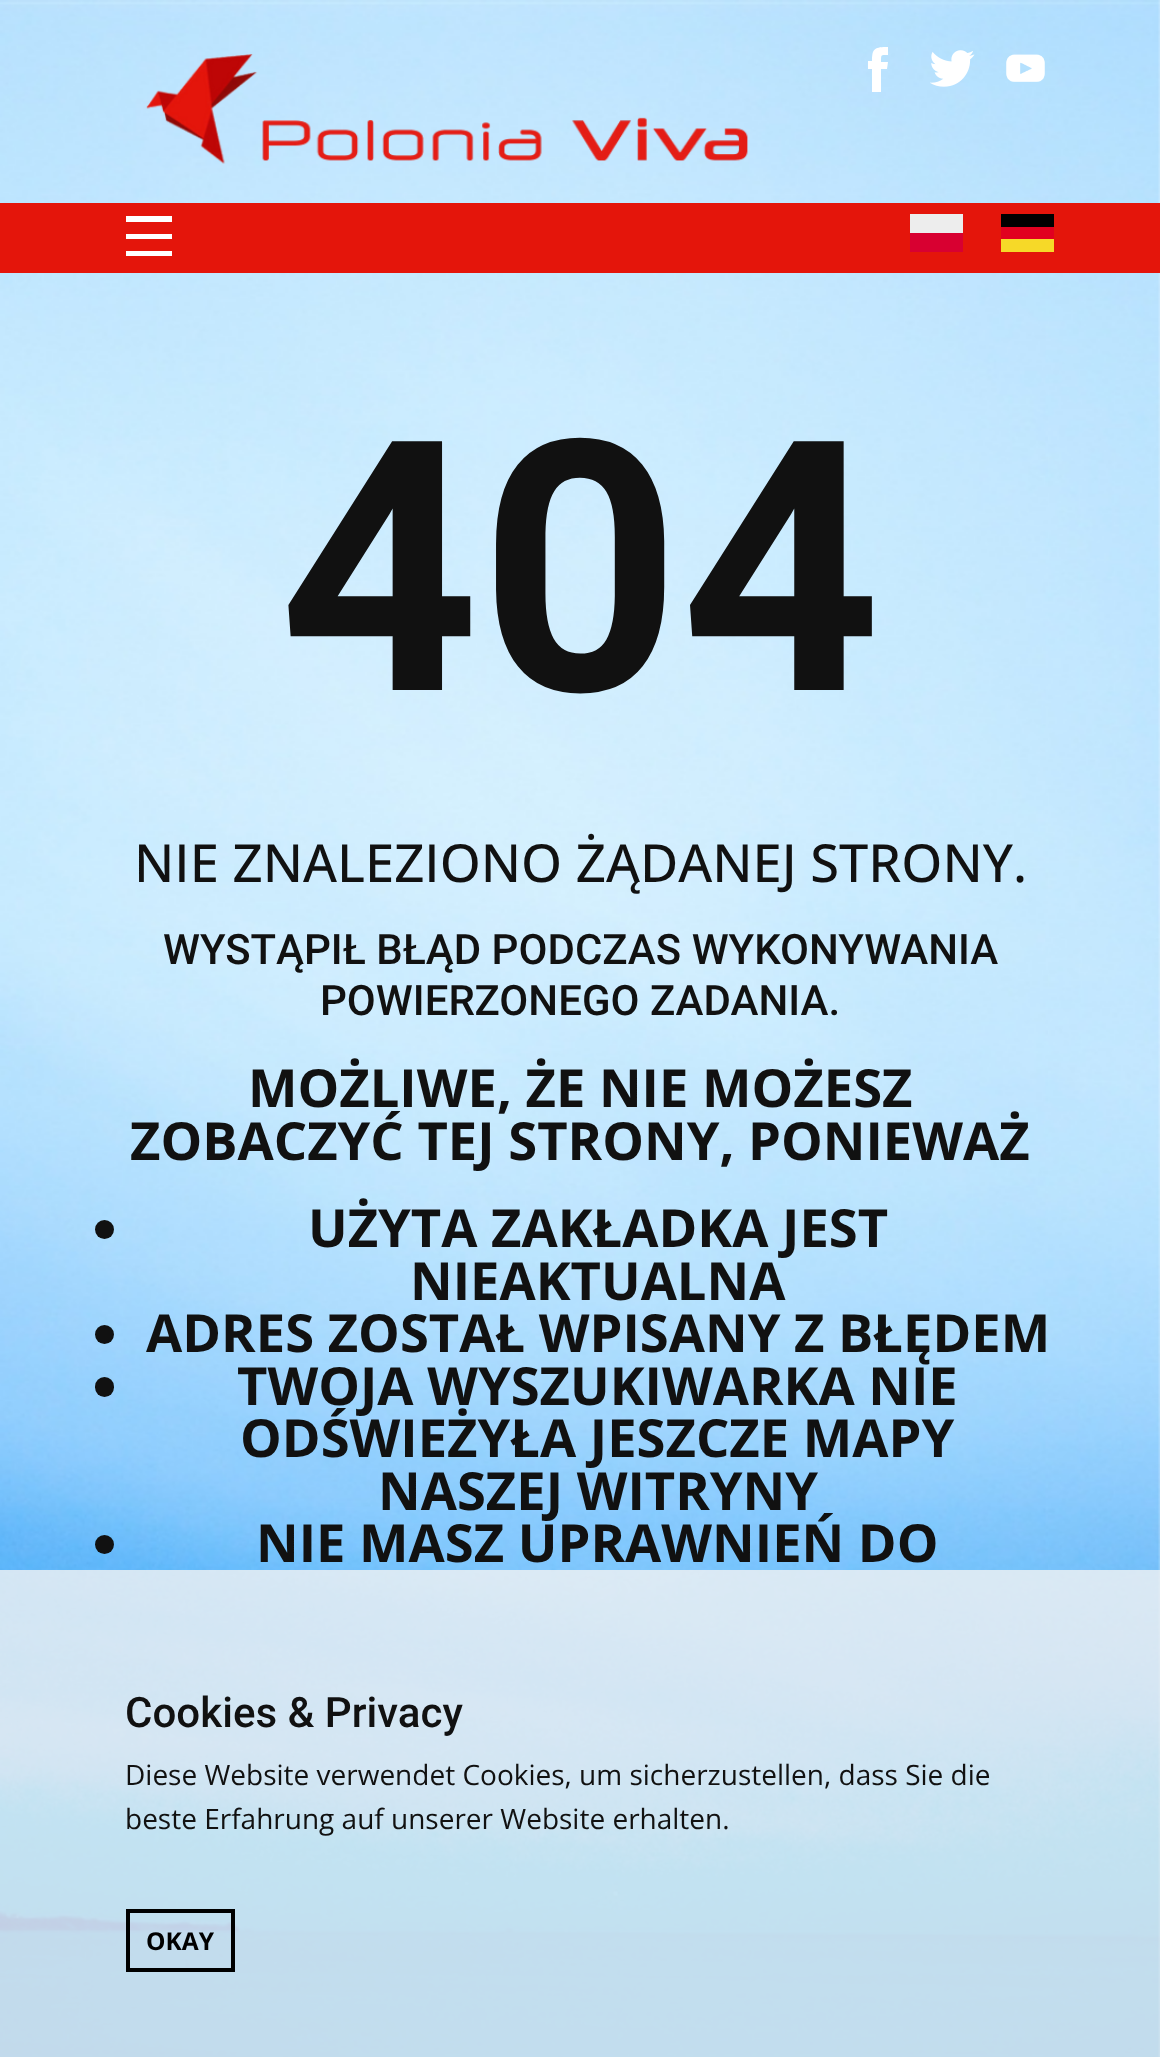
<!DOCTYPE html>
<meta charset="utf-8">
<style>body { margin: 0 } canvas { display: block }</style>
<canvas id="canvas" width="1160" height="2057"></canvas>
<img id="img1" src="img_01.png" hidden>
<img id="img2" src="img_02.png" hidden>
<img id="img3" src="img_03.png" hidden>
<img id="img4" src="img_04.png" hidden>
<script>
window.onload = function () {
	const canvas = document.getElementById("canvas");
	const ctx = canvas.getContext("2d");
	ctx.miterLimit = 4;
	ctx.fontKerning = "normal";
	function txt(s, x, y) {
		ctx.fillText(s, x, y);
	}
	function fill(x, y, w, h) {
		ctx.fillRect(x, y, w, h);
	}
	function round(x, y, w, h, r) {
		ctx.beginPath();
		ctx.roundRect(x, y, w, h, r);
		ctx.fill();
	}
	function img(id, x, y, w, h) {
		ctx.drawImage(document.getElementById(id), x, y, w, h);
	}

	ctx.fillStyle = "#FFFFFF";
	fill(0, 0, 1160, 2057);
	img("img1", 0, 0, 1160, 2057);
	img("img2", 146, 54, 602, 110);
	ctx.beginPath();
	ctx.moveTo(888, 55);
	ctx.bezierCurveTo(881, 55, 881, 54, 881, 62);
	ctx.lineTo(888, 62);
	ctx.lineTo(887, 69);
	ctx.lineTo(881, 69);
	ctx.lineTo(881, 92);
	ctx.lineTo(872, 92);
	ctx.lineTo(872, 69);
	ctx.lineTo(868, 69);
	ctx.lineTo(868, 61);
	ctx.lineTo(872, 61);
	ctx.bezierCurveTo(872, 48, 875, 47, 888, 47);
	ctx.closePath();
	ctx.fill();
	img("img3", 930, 50, 45, 37);
	img("img4", 1006, 54, 39, 28);
	ctx.fillStyle = "#E4150B";
	fill(0, 203, 1160, 70);
	ctx.fillStyle = "#FFFFFF";
	fill(126, 216, 46, 6);
	fill(126, 234, 46, 5);
	fill(126, 251, 46, 5);
	ctx.fillStyle = "#EDEDED";
	fill(910, 214, 53, 19);
	ctx.fillStyle = "#D80031";
	fill(910, 233, 53, 19);
	ctx.fillStyle = "#000000";
	fill(1001, 214, 53, 13);
	ctx.fillStyle = "#E1001F";
	fill(1001, 227, 53, 12);
	ctx.fillStyle = "#F6D928";
	fill(1001, 239, 53, 13);
	ctx.fillStyle = "#111111";
	ctx.beginPath();
	ctx.arc(104.5, 1229.5, 9.5, 0, Math.PI * 2);
	ctx.fill();
	ctx.beginPath();
	ctx.arc(104.5, 1334.5, 9.5, 0, Math.PI * 2);
	ctx.fill();
	round(95, 1377, 19, 20, 9.5);
	ctx.beginPath();
	ctx.arc(104.5, 1544.5, 9.5, 0, Math.PI * 2);
	ctx.fill();
	ctx.fillStyle = "rgba(242, 242, 242, 0.8)";
	fill(0, 1570, 1160, 487);
	ctx.strokeStyle = "#000000";
	ctx.lineWidth = 4;
	ctx.strokeRect(128, 1911, 105, 59);
	ctx.font = "bold 350px Roboto";
	ctx.fillStyle = "#111111";
	txt("404", 279, 690);
	ctx.font = "500 52.5px Open Sans";
	txt("NIE ZNALEZIONO ŻĄDANEJ STRONY.", 134, 882);
	ctx.font = "500 42px Roboto";
	txt("WYSTĄPIŁ BŁĄD PODCZAS WYKONYWANIA", 163, 964);
	txt("POWIERZONEGO ZADANIA.", 320, 1015);
	ctx.font = "bold 52.5px Open Sans";
	txt("MOŻLIWE, ŻE NIE MOŻESZ", 248, 1107);
	txt("ZOBACZYĆ TEJ STRONY, PONIEWAŻ", 130, 1160);
	txt("UŻYTA ZAKŁADKA JEST", 308, 1247);
	txt("NIEAKTUALNA", 410, 1300);
	txt("ADRES ZOSTAŁ WPISANY Z BŁĘDEM", 146, 1352);
	txt("TWOJA WYSZUKIWARKA NIE", 237, 1405);
	txt("ODŚWIEŻYŁA JESZCZE MAPY", 240, 1457);
	txt("NASZEJ WITRYNY", 378, 1510);
	txt("NIE MASZ UPRAWNIEŃ DO", 256, 1562);
	ctx.font = "500 42px Roboto";
	txt("Cookies & Privacy", 125, 1727);
	ctx.font = "28px Open Sans";
	txt("Diese Website verwendet Cookies, um sicherzustellen, dass Sie die", 125, 1785);
	txt("beste Erfahrung auf unserer Website erhalten.", 125, 1829);
	ctx.font = "bold 24.5px Open Sans";
	ctx.fillStyle = "#000000";
	txt("OKAY", 146, 1950);
};
</script>
